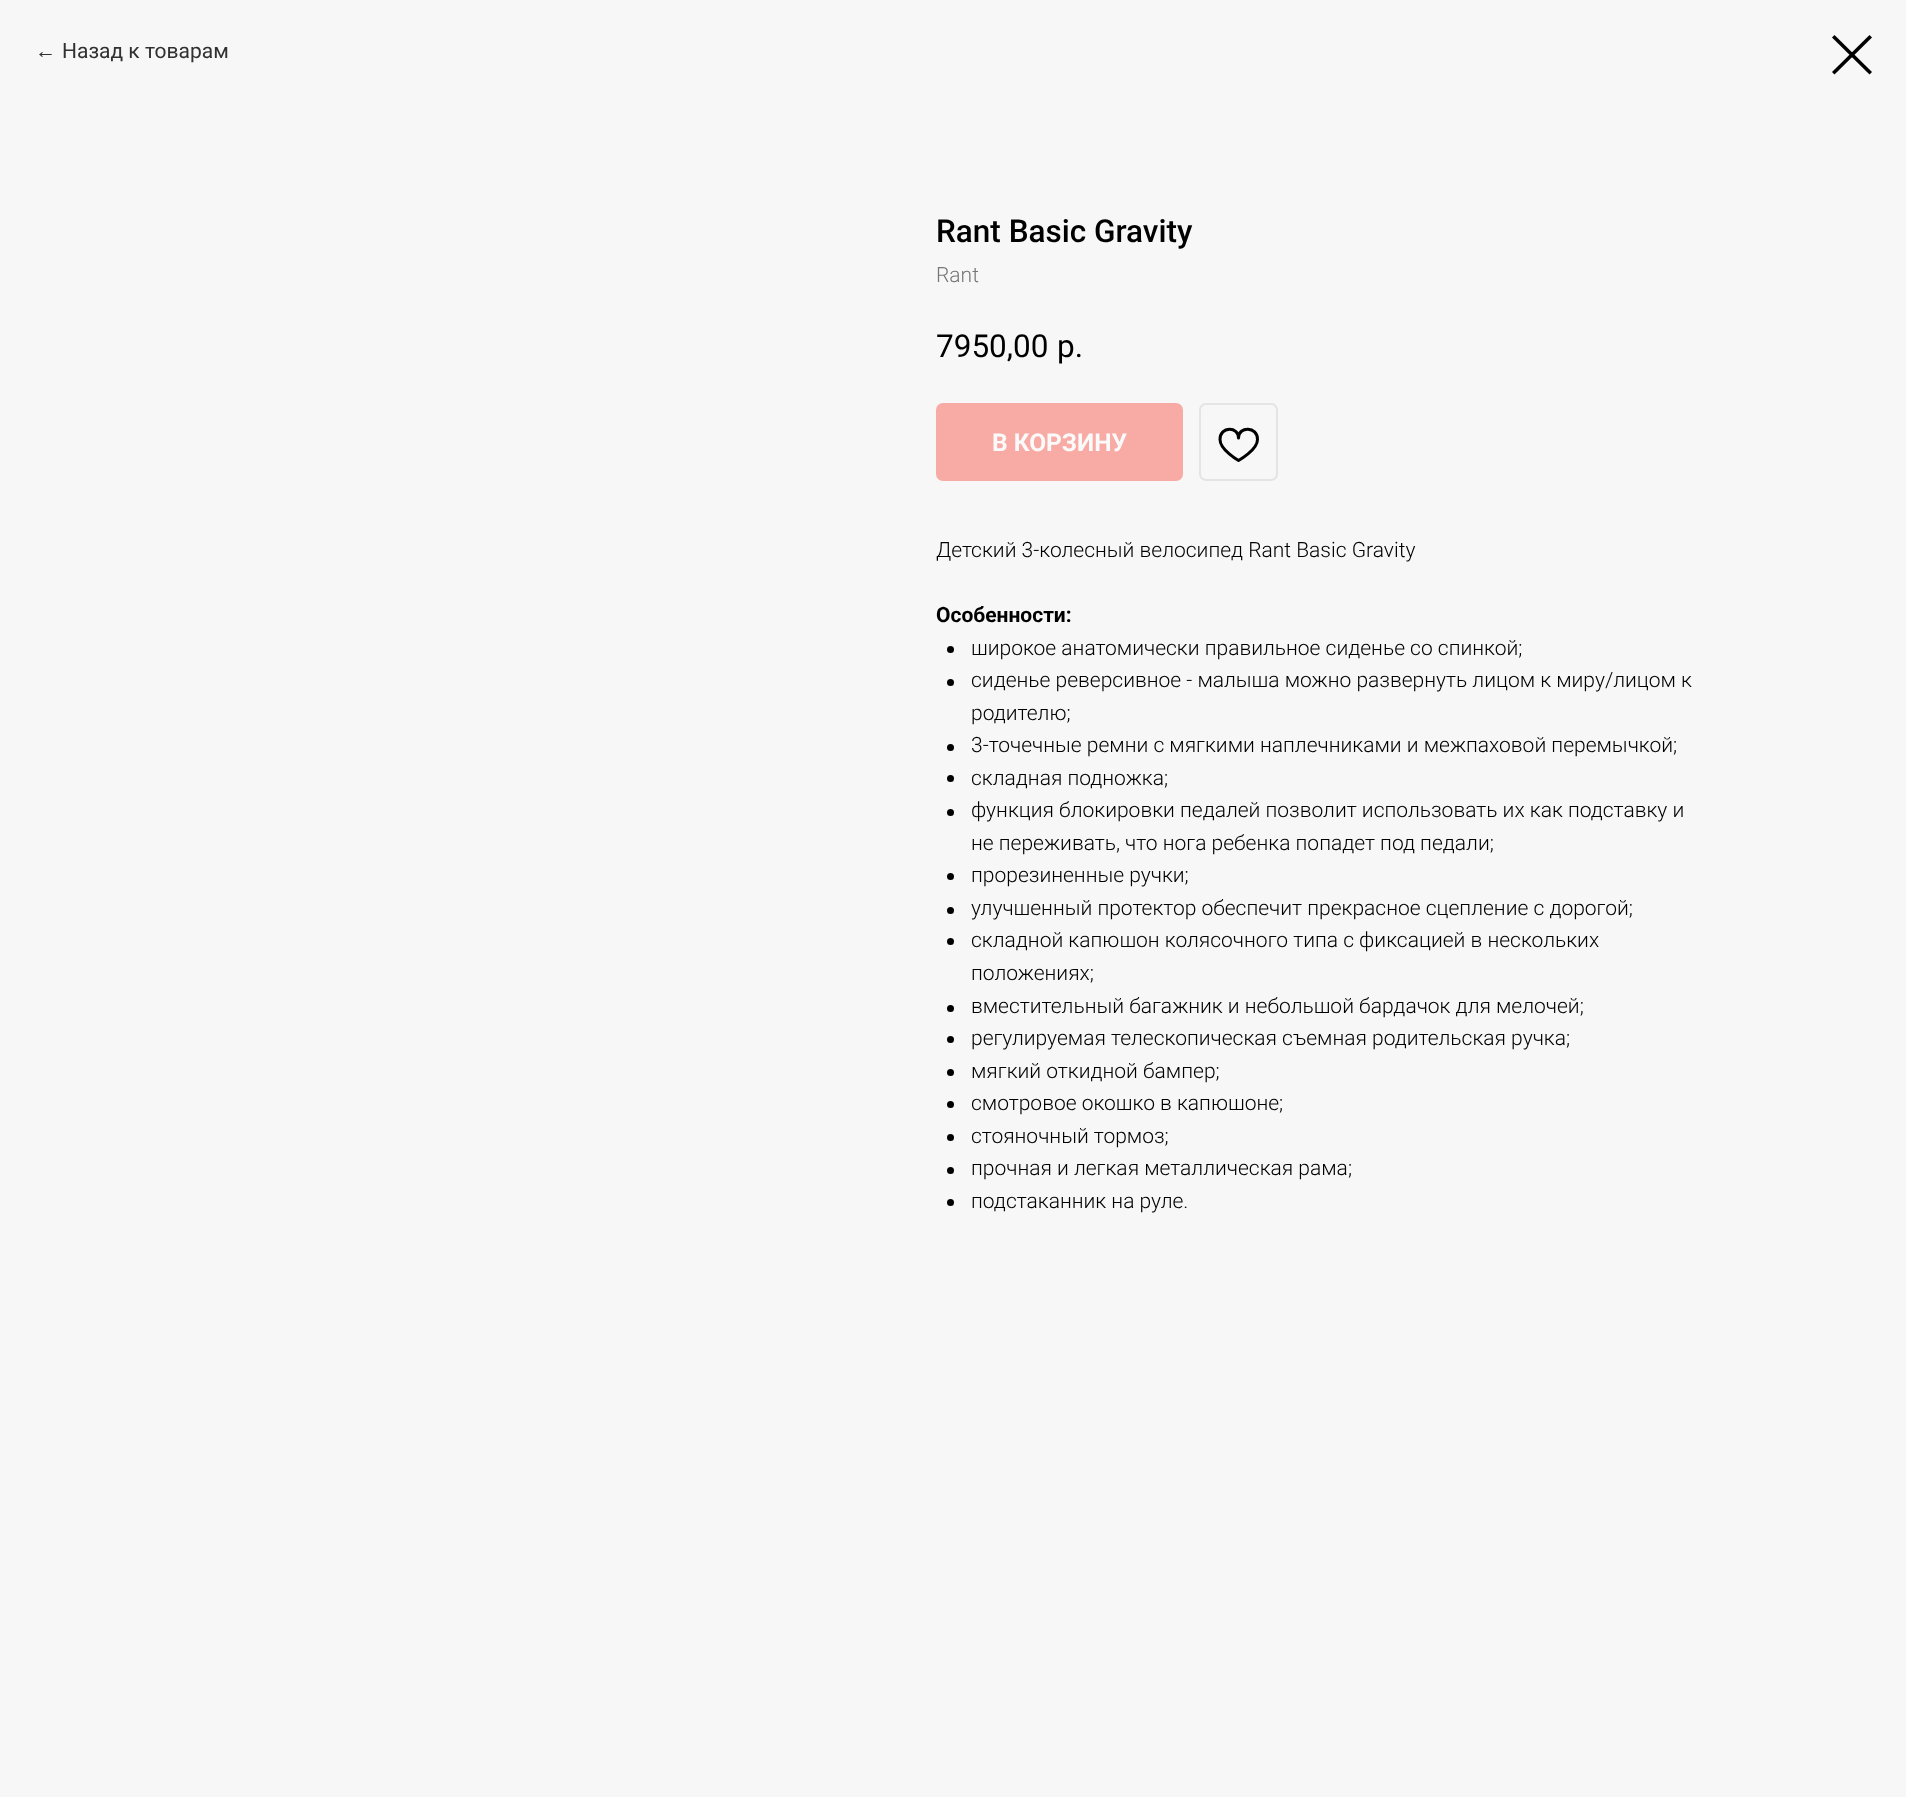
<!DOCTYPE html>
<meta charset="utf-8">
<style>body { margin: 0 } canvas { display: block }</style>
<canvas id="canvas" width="1906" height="1797"></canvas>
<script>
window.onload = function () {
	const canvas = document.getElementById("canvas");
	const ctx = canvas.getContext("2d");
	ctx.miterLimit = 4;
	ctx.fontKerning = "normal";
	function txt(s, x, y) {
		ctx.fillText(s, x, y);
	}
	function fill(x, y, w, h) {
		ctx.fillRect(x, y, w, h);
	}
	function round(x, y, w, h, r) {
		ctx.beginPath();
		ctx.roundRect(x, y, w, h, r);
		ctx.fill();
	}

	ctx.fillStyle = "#F7F7F7";
	fill(0, 0, 1906, 1797);
	ctx.fillStyle = "#000000";
	ctx.beginPath();
	ctx.moveTo(1832, 37.5);
	ctx.lineTo(1834.5, 35);
	ctx.lineTo(1872, 72);
	ctx.lineTo(1869.5, 74.5);
	ctx.closePath();
	ctx.fill("evenodd");
	ctx.beginPath();
	ctx.moveTo(1869.5, 35);
	ctx.lineTo(1872, 37.5);
	ctx.lineTo(1834.5, 74.5);
	ctx.lineTo(1832, 72);
	ctx.closePath();
	ctx.fill("evenodd");
	ctx.fillStyle = "#F8AAA4";
	round(936, 403, 247, 78, 7);
	ctx.beginPath();
	ctx.roundRect(1200, 404, 77, 76, 6);
	ctx.strokeStyle = "#E4E4E4";
	ctx.lineWidth = 2;
	ctx.stroke();
	ctx.beginPath();
	ctx.moveTo(1257.5, 439.5);
	ctx.bezierCurveTo(1257.5, 450, 1238.5, 460.5, 1238.5, 460.5);
	ctx.bezierCurveTo(1238.5, 460.5, 1220, 450, 1220, 439.5);
	ctx.bezierCurveTo(1220, 426, 1238.5, 426, 1238.5, 438);
	ctx.bezierCurveTo(1238.5, 426, 1257.5, 426, 1257.5, 439.5);
	ctx.closePath();
	ctx.strokeStyle = "#000000";
	ctx.lineWidth = 3;
	ctx.lineJoin = "round";
	ctx.stroke();
	ctx.fillStyle = "#000000";
	ctx.beginPath();
	ctx.arc(950.5, 649.5, 3.5, 0, Math.PI * 2);
	ctx.fill();
	ctx.beginPath();
	ctx.arc(950.5, 682.5, 3.5, 0, Math.PI * 2);
	ctx.fill();
	ctx.beginPath();
	ctx.arc(950.5, 747.5, 3.5, 0, Math.PI * 2);
	ctx.fill();
	ctx.beginPath();
	ctx.arc(950.5, 778.5, 3.5, 0, Math.PI * 2);
	ctx.fill();
	ctx.beginPath();
	ctx.arc(950.5, 812.5, 3.5, 0, Math.PI * 2);
	ctx.fill();
	ctx.beginPath();
	ctx.arc(950.5, 876.5, 3.5, 0, Math.PI * 2);
	ctx.fill();
	ctx.beginPath();
	ctx.arc(950.5, 910.5, 3.5, 0, Math.PI * 2);
	ctx.fill();
	ctx.beginPath();
	ctx.arc(950.5, 941.5, 3.5, 0, Math.PI * 2);
	ctx.fill();
	ctx.beginPath();
	ctx.arc(950.5, 1008.5, 3.5, 0, Math.PI * 2);
	ctx.fill();
	ctx.beginPath();
	ctx.arc(950.5, 1039.5, 3.5, 0, Math.PI * 2);
	ctx.fill();
	ctx.beginPath();
	ctx.arc(950.5, 1072.5, 3.5, 0, Math.PI * 2);
	ctx.fill();
	ctx.beginPath();
	ctx.arc(950.5, 1104.5, 3.5, 0, Math.PI * 2);
	ctx.fill();
	ctx.beginPath();
	ctx.arc(950.5, 1137.5, 3.5, 0, Math.PI * 2);
	ctx.fill();
	ctx.beginPath();
	ctx.arc(950.5, 1170.5, 3.5, 0, Math.PI * 2);
	ctx.fill();
	ctx.beginPath();
	ctx.arc(950.5, 1202.5, 3.5, 0, Math.PI * 2);
	ctx.fill();
	ctx.font = "21px Liberation Sans";
	ctx.fillStyle = "#313131";
	txt("←", 35, 58);
	ctx.font = "21px Roboto";
	txt("Назад к товарам", 62, 58);
	ctx.font = "500 31.5px Roboto";
	ctx.fillStyle = "#000000";
	txt("Rant Basic Gravity", 936, 242);
	ctx.font = "300 21px Roboto";
	ctx.fillStyle = "#777777";
	txt("Rant", 936, 282);
	ctx.font = "31.5px Roboto";
	ctx.fillStyle = "#000000";
	txt("7950,00", 936, 357);
	txt("р.", 1057, 357);
	ctx.font = "bold 24.5px Roboto";
	ctx.fillStyle = "#FAFAFA";
	txt("В КОРЗИНУ", 992, 451);
	ctx.font = "300 21px Roboto";
	ctx.fillStyle = "#000000";
	txt("Детский 3-колесный велосипед Rant Basic Gravity", 936, 557);
	ctx.font = "bold 21px Roboto";
	txt("Особенности:", 936, 622);
	ctx.font = "300 21px Roboto";
	txt("широкое анатомически правильное сиденье со спинкой;", 971, 655);
	txt("сиденье реверсивное - малыша можно развернуть лицом к миру/лицом к", 971, 687);
	txt("родителю;", 971, 720);
	txt("3-точечные ремни с мягкими наплечниками и межпаховой перемычкой;", 971, 752);
	txt("складная подножка;", 971, 785);
	txt("функция блокировки педалей позволит использовать их как подставку и", 971, 817);
	txt("не переживать, что нога ребенка попадет под педали;", 971, 850);
	txt("прорезиненные ручки;", 971, 882);
	txt("улучшенный протектор обеспечит прекрасное сцепление с дорогой;", 971, 915);
	txt("складной капюшон колясочного типа с фиксацией в нескольких", 971, 947);
	txt("положениях;", 971, 980);
	txt("вместительный багажник и небольшой бардачок для мелочей;", 971, 1013);
	txt("регулируемая телескопическая съемная родительская ручка;", 971, 1045);
	txt("мягкий откидной бампер;", 971, 1078);
	txt("смотровое окошко в капюшоне;", 971, 1110);
	txt("стояночный тормоз;", 971, 1143);
	txt("прочная и легкая металлическая рама;", 971, 1175);
	txt("подстаканник на руле.", 971, 1208);
};
</script>
